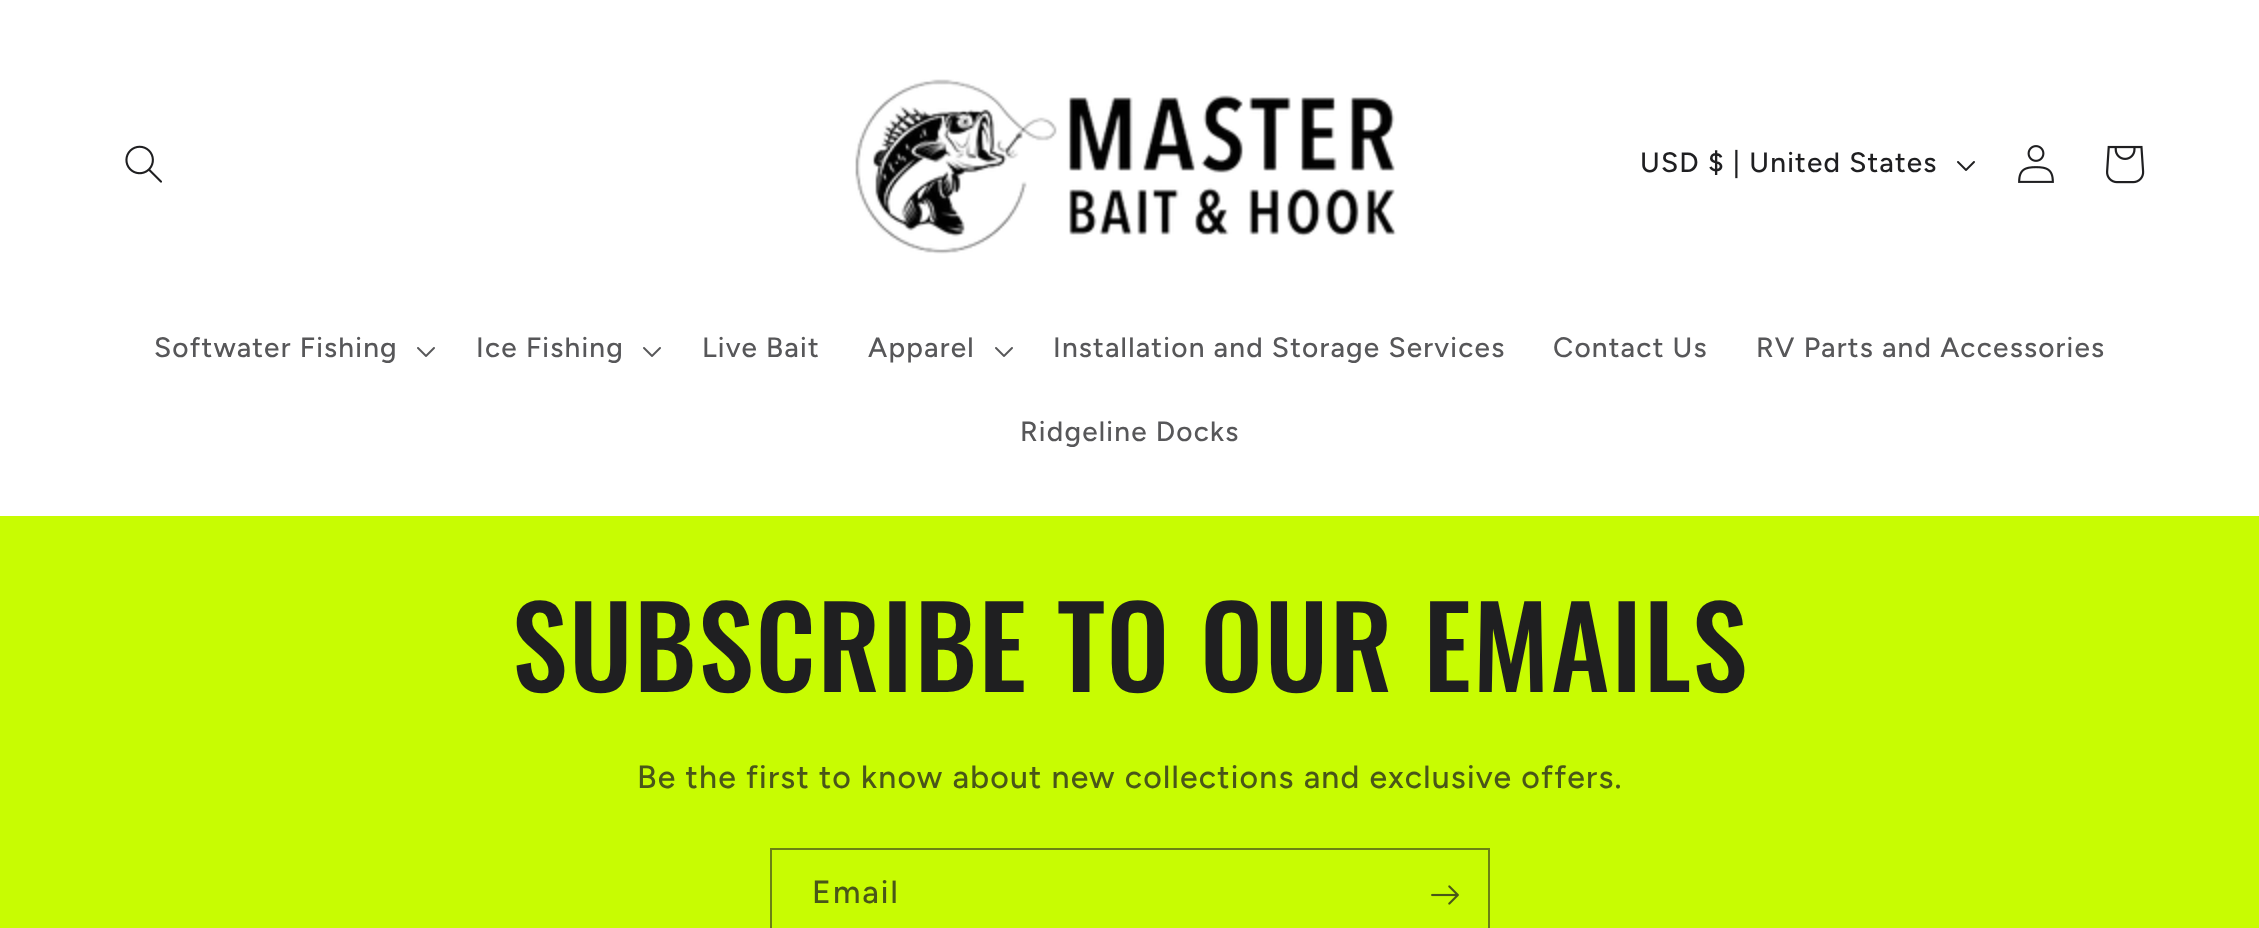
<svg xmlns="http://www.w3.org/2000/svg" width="2259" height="928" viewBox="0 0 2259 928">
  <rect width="100%" height="100%" fill="#c8fc02"/>
  <rect x="0" y="0" width="2259" height="516" fill="#ffffff"/>
  <image x="125" y="145" width="37" height="38" href="img1.png"/>
  <image x="855" y="79" width="542" height="175" href="img2.png"/>
  <text x="1640" y="172" font-family="Figtree" font-size="28" font-weight="500" letter-spacing="1.2" fill="#1f1f21">USD $ | United States</text>
  <image x="1957" y="161" width="18" height="10" href="img3.png"/>
  <image x="2018" y="145" width="36" height="38" href="img4.png"/>
  <image x="2106" y="145" width="39" height="39" href="img5.png"/>
  <text x="154" y="357" font-family="Figtree" font-size="28" font-weight="500" letter-spacing="1.2" fill="#575759">Softwater Fishing</text>
  <image x="417" y="347" width="18" height="10" href="img6.png"/>
  <text x="476" y="357" font-family="Figtree" font-size="28" font-weight="500" letter-spacing="1.2" fill="#575759">Ice Fishing</text>
  <image x="643" y="347" width="18" height="10" href="img6.png"/>
  <text x="702" y="357" font-family="Figtree" font-size="28" font-weight="500" letter-spacing="1.2" fill="#575759">Live Bait</text>
  <text x="868" y="357" font-family="Figtree" font-size="28" font-weight="500" letter-spacing="1.2" fill="#575759">Apparel</text>
  <image x="995" y="347" width="18" height="10" href="img6.png"/>
  <text x="1053" y="357" font-family="Figtree" font-size="28" font-weight="500" letter-spacing="1.2" fill="#575759">Installation and Storage Services</text>
  <text x="1553" y="357" font-family="Figtree" font-size="28" font-weight="500" letter-spacing="1.2" fill="#575759">Contact Us</text>
  <text x="1756" y="357" font-family="Figtree" font-size="28" font-weight="500" letter-spacing="1.2" fill="#575759">RV Parts and Accessories</text>
  <text x="1020" y="441" font-family="Figtree" font-size="28" font-weight="500" letter-spacing="1.2" fill="#575759">Ridgeline Docks</text>
  <text x="512" y="692" font-family="Oswald" font-size="112" font-weight="500" letter-spacing="1.7" fill="#1f1f21">SUBSCRIBE TO OUR EMAILS</text>
  <text x="637" y="788" font-family="Figtree" font-size="32" font-weight="500" letter-spacing="1.2" fill="#495619">Be the first to know about new collections and exclusive offers.</text>
  <rect x="771" y="849" width="718" height="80" fill="none" stroke="#6b8213" stroke-width="2"/>
  <text x="812" y="903" font-family="Figtree" font-size="32" font-weight="500" letter-spacing="2" fill="#495619">Email</text>
  <image x="1431" y="885" width="28" height="20" href="img7.png"/>
</svg>
